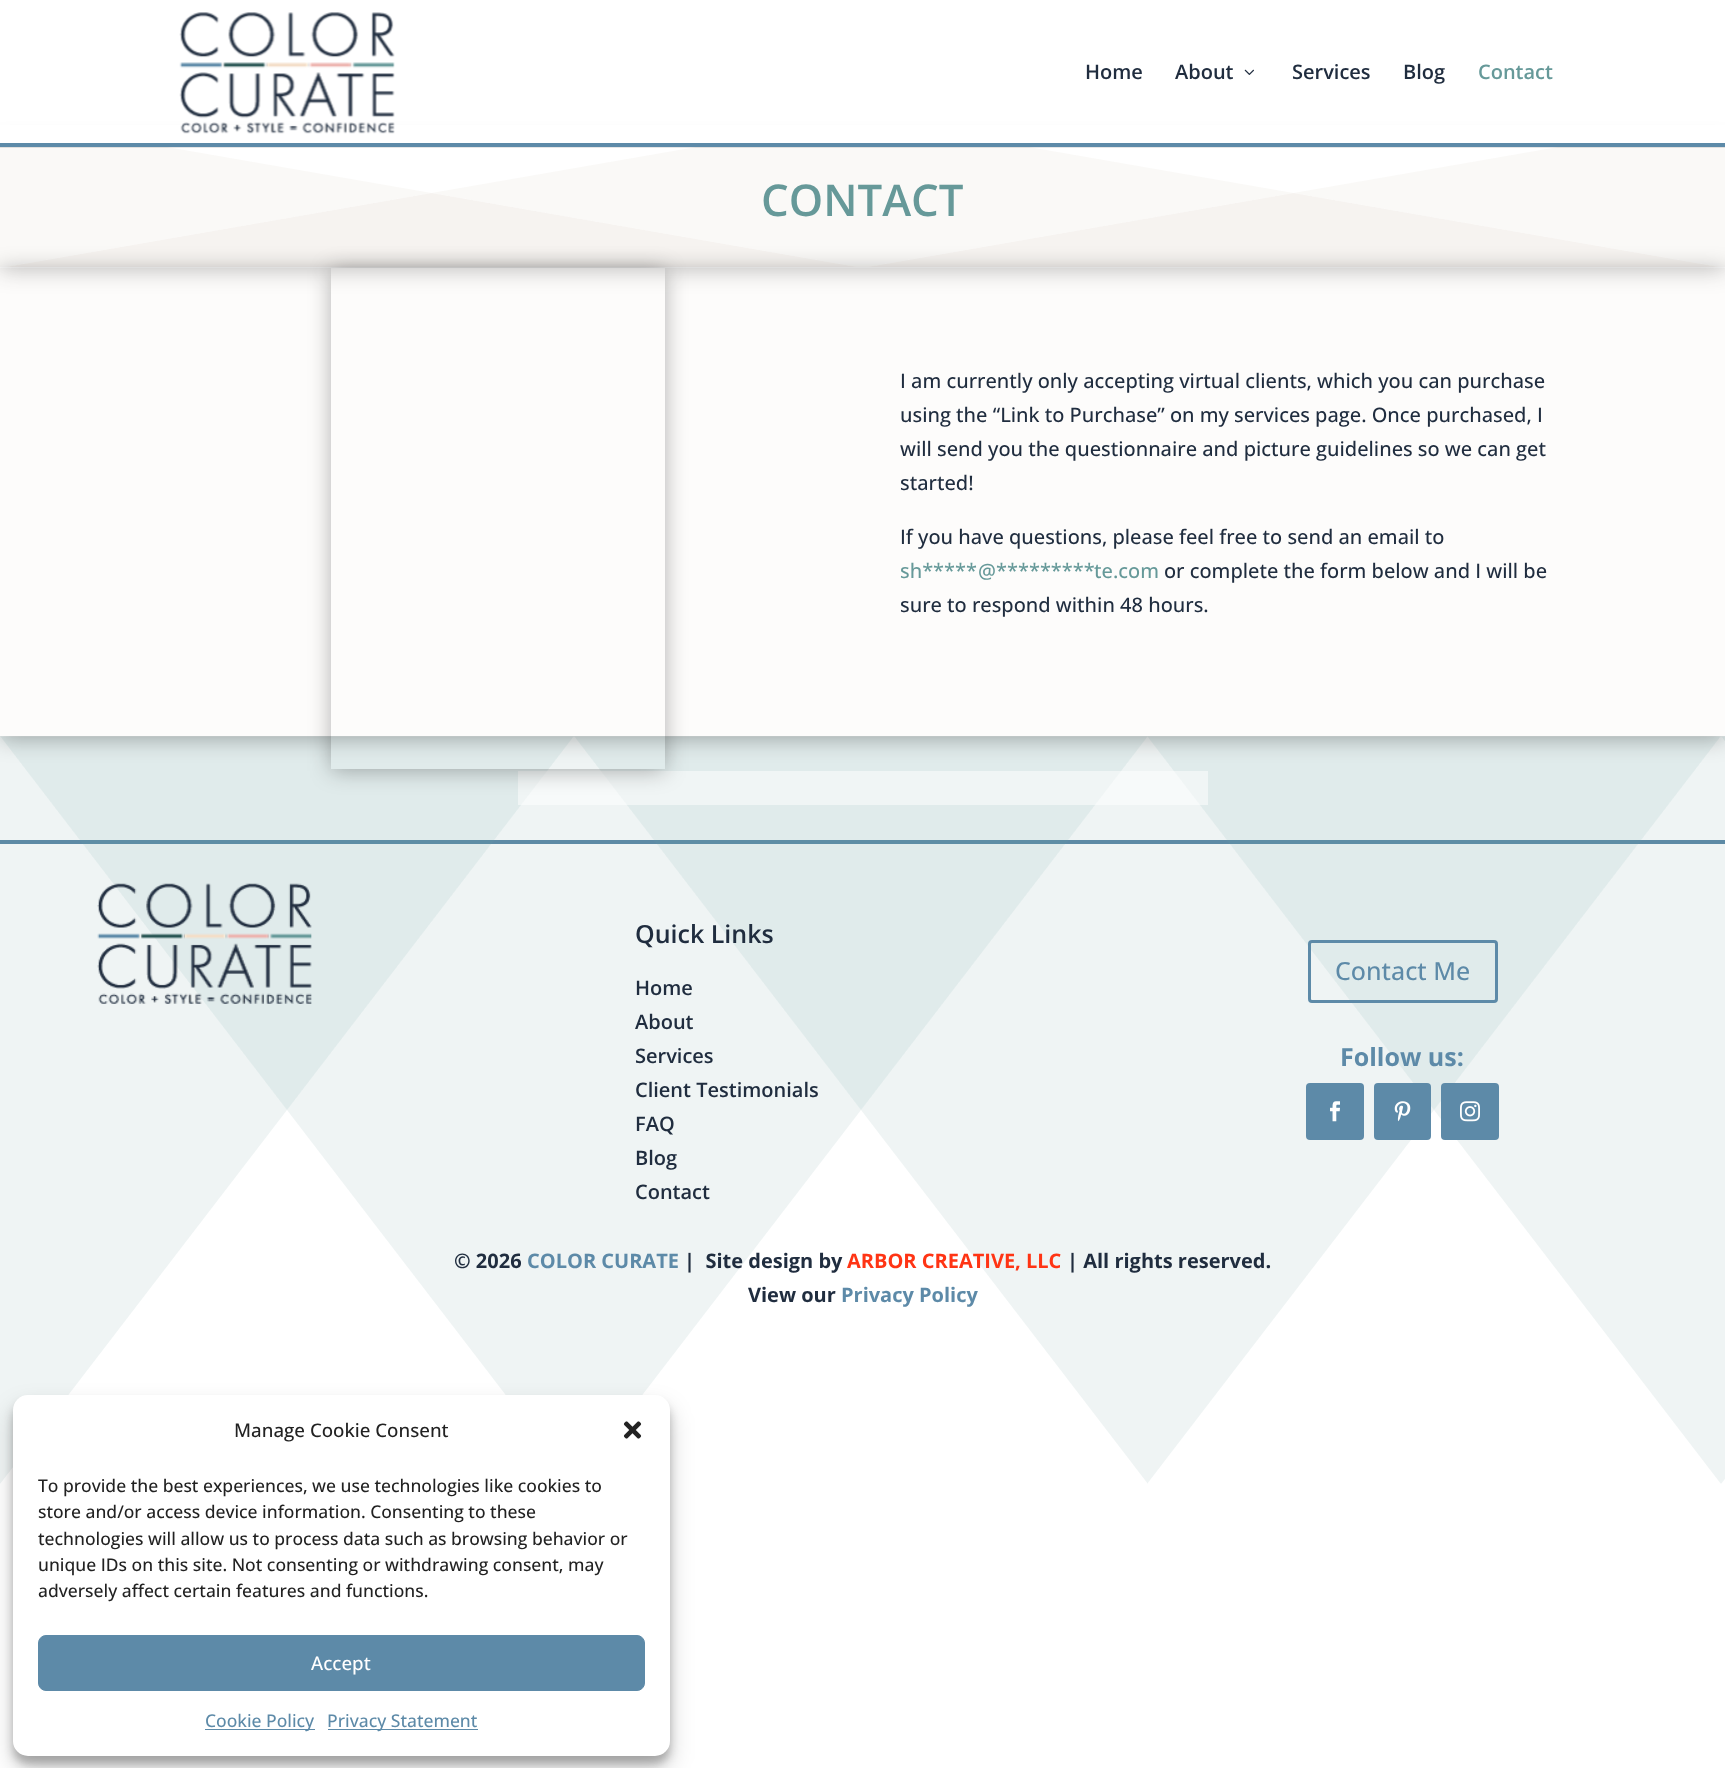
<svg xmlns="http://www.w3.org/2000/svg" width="1725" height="1768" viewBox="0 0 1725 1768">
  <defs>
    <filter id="blur1" x="-50%" y="-200%" width="200%" height="500%"><feGaussianBlur stdDeviation="11"/></filter>
    <clipPath id="clip1"><path d="M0 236H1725V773H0ZM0 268H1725V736H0Z" clip-rule="evenodd"/></clipPath>
    <clipPath id="clip2"><path d="M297 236H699V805H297ZM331 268H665V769H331Z" clip-rule="evenodd"/></clipPath>
    <filter id="blur2" x="-50%" y="-200%" width="200%" height="500%"><feGaussianBlur stdDeviation="4"/></filter>
    <filter id="blur3" x="-50%" y="-200%" width="200%" height="500%"><feGaussianBlur stdDeviation="12.5"/></filter>
  </defs>
  <rect width="100%" height="100%" fill="#ffffff"/>
  <rect x="0" y="145" width="1725" height="125" fill="#000000" fill-opacity="0.3" filter="url(#blur1)"/>
  <rect x="0" y="147" width="1725" height="121" fill="#ffffff"/>
  <image x="0" y="147" width="1725" height="120" href="img3.png"/>
  <rect x="0" y="147" width="1725" height="1" fill="#000000" fill-opacity="0.1"/>
  <rect x="0" y="125" width="1725" height="18" fill="#ffffff"/>
  <rect x="0" y="143" width="1725" height="4" fill="#5d8aa8"/>
  <image x="179" y="12" width="216" height="122" href="img1.png"/>
  <text x="1085" y="79" font-family="Open Sans" font-size="20" font-weight="600" fill="#202d3f">Home</text>
  <text x="1175" y="79" font-family="Open Sans" font-size="20" font-weight="600" fill="#202d3f">About</text>
  <image x="1244" y="69" width="10" height="6" href="img2.png"/>
  <text x="1292" y="79" font-family="Open Sans" font-size="20" font-weight="600" fill="#202d3f">Services</text>
  <text x="1403" y="79" font-family="Open Sans" font-size="20" font-weight="600" fill="#202d3f">Blog</text>
  <text x="1478" y="79" font-family="Open Sans" font-size="20" font-weight="600" fill="#669999">Contact</text>
  <text x="761" y="216" font-family="Open Sans" font-size="43.75" font-weight="600" fill="#669999">CONTACT</text>
  <rect x="0" y="840" width="1725" height="4" fill="#5d8aa8"/>
  <image x="0" y="736" width="1725" height="748" href="img4.png"/>
  <rect x="518" y="771" width="690" height="34" fill="#ffffff" fill-opacity="0.5"/>
  <g clip-path="url(#clip1)">
    <rect x="0" y="270" width="1725" height="469" fill="#000000" fill-opacity="0.3" filter="url(#blur1)"/>
  </g>
  <rect x="0" y="268" width="1725" height="468" fill="#f4f1ed" fill-opacity="0.2"/>
  <g clip-path="url(#clip2)">
    <rect x="331" y="270" width="334" height="501" fill="#000000" fill-opacity="0.3" filter="url(#blur1)"/>
  </g>
  <text x="900" y="388" font-family="Open Sans" font-size="20" font-weight="500" fill="#202d3f">I am currently only accepting virtual clients, which you can purchase</text>
  <text x="900" y="422" font-family="Open Sans" font-size="20" font-weight="500" fill="#202d3f">using the “Link to Purchase” on my services page. Once purchased, I</text>
  <text x="900" y="456" font-family="Open Sans" font-size="20" font-weight="500" fill="#202d3f">will send you the questionnaire and picture guidelines so we can get</text>
  <text x="900" y="490" font-family="Open Sans" font-size="20" font-weight="500" fill="#202d3f">started!</text>
  <text x="900" y="544" font-family="Open Sans" font-size="20" font-weight="500" fill="#202d3f">If you have questions, please feel free to send an email to</text>
  <text x="900" y="578" font-family="Open Sans" font-size="20" font-weight="500" fill="#669999">sh*****</text>
  <text x="978" y="578" font-family="Open Sans" font-size="20" font-weight="500" fill="#669999">@*********</text>
  <text x="1094" y="578" font-family="Open Sans" font-size="20" font-weight="500" fill="#669999">te.com</text>
  <text x="1164" y="578" font-family="Open Sans" font-size="20" font-weight="500" fill="#202d3f">or complete the form below and I will be</text>
  <text x="900" y="612" font-family="Open Sans" font-size="20" font-weight="500" fill="#202d3f">sure to respond within 48 hours.</text>
  <image x="97" y="883" width="215" height="121" href="img5.png"/>
  <text x="635" y="943" font-family="Open Sans" font-size="25" font-weight="600" fill="#202d3f">Quick Links</text>
  <text x="635" y="995" font-family="Open Sans" font-size="20" font-weight="600" fill="#202d3f">Home</text>
  <text x="635" y="1029" font-family="Open Sans" font-size="20" font-weight="600" fill="#202d3f">About</text>
  <text x="635" y="1063" font-family="Open Sans" font-size="20" font-weight="600" fill="#202d3f">Services</text>
  <text x="635" y="1097" font-family="Open Sans" font-size="20" font-weight="600" fill="#202d3f">Client Testimonials</text>
  <text x="635" y="1131" font-family="Open Sans" font-size="20" font-weight="600" fill="#202d3f">FAQ</text>
  <text x="635" y="1165" font-family="Open Sans" font-size="20" font-weight="600" fill="#202d3f">Blog</text>
  <text x="635" y="1199" font-family="Open Sans" font-size="20" font-weight="600" fill="#202d3f">Contact</text>
  <rect x="1309.5" y="941.5" width="187" height="60" rx="2.5" fill="none" stroke="#5d8aa8" stroke-width="3"/>
  <text x="1335" y="980" font-family="Open Sans" font-size="25" font-weight="500" fill="#5d8aa8">Contact Me</text>
  <text x="1340" y="1066" font-family="Open Sans" font-size="25" font-weight="bold" fill="#5d8aa8">Follow us:</text>
  <rect x="1306" y="1083" width="58" height="57" rx="4" fill="#5d8aa8"/>
  <image x="1330" y="1101" width="10" height="21" href="img6.png"/>
  <rect x="1374" y="1083" width="57" height="57" rx="4" fill="#5d8aa8"/>
  <image x="1394" y="1101" width="17" height="21" href="img7.png"/>
  <rect x="1441" y="1083" width="58" height="57" rx="4" fill="#5d8aa8"/>
  <image x="1460" y="1101" width="20" height="21" href="img8.png"/>
  <text x="454" y="1268" font-family="Open Sans" font-size="20" font-weight="bold" fill="#202d3f">© 2026</text>
  <text x="527" y="1268" font-family="Open Sans" font-size="20" font-weight="bold" fill="#5d8aa8">COLOR CURATE</text>
  <text x="684" y="1268" font-family="Open Sans" font-size="20" font-weight="bold" fill="#202d3f" xml:space="preserve">|  Site design by</text>
  <text x="847" y="1268" font-family="Open Sans" font-size="20" font-weight="bold" fill="#ff3414">ARBOR CREATIVE, LLC</text>
  <text x="1067" y="1268" font-family="Open Sans" font-size="20" font-weight="bold" fill="#202d3f">| All rights reserved.</text>
  <text x="748" y="1302" font-family="Open Sans" font-size="20" font-weight="bold" fill="#202d3f">View our</text>
  <text x="841" y="1302" font-family="Open Sans" font-size="20" font-weight="bold" fill="#5d8aa8">Privacy Policy</text>
  <rect x="13" y="1403" width="657" height="361" rx="15" fill="#000000" fill-opacity="0.23" filter="url(#blur2)"/>
  <rect x="13" y="1408" width="657" height="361" rx="15" fill="#000000" fill-opacity="0.19" filter="url(#blur3)"/>
  <rect x="13" y="1395" width="657" height="361" rx="15" fill="#ffffff"/>
  <text x="234" y="1437" font-family="Open Sans" font-size="18.75" font-weight="500" fill="#222222">Manage Cookie Consent</text>
  <image x="623" y="1421" width="19" height="18" href="img9.png"/>
  <text x="38" y="1492" font-family="Open Sans" font-size="17.5" font-weight="500" fill="#222222">To provide the best experiences, we use technologies like cookies to</text>
  <text x="38" y="1518" font-family="Open Sans" font-size="17.5" font-weight="500" fill="#222222">store and/or access device information. Consenting to these</text>
  <text x="38" y="1545" font-family="Open Sans" font-size="17.5" font-weight="500" fill="#222222">technologies will allow us to process data such as browsing behavior or</text>
  <text x="38" y="1571" font-family="Open Sans" font-size="17.5" font-weight="500" fill="#222222">unique IDs on this site. Not consenting or withdrawing consent, may</text>
  <text x="38" y="1597" font-family="Open Sans" font-size="17.5" font-weight="500" fill="#222222">adversely affect certain features and functions.</text>
  <rect x="38.5" y="1635.5" width="606" height="55" rx="7.5" fill="#5d8aa8" stroke="#5d8aa8"/>
  <text x="311" y="1670" font-family="Open Sans" font-size="18.75" font-weight="500" fill="#ffffff">Accept</text>
  <rect x="205" y="1729" width="110" height="1" fill="#5d8aa8"/>
  <text x="205" y="1727" font-family="Open Sans" font-size="17.5" font-weight="500" fill="#5d8aa8">Cookie Policy</text>
  <rect x="328" y="1729" width="150" height="1" fill="#5d8aa8"/>
  <text x="327" y="1727" font-family="Open Sans" font-size="17.5" font-weight="500" fill="#5d8aa8">Privacy Statement</text>
</svg>
